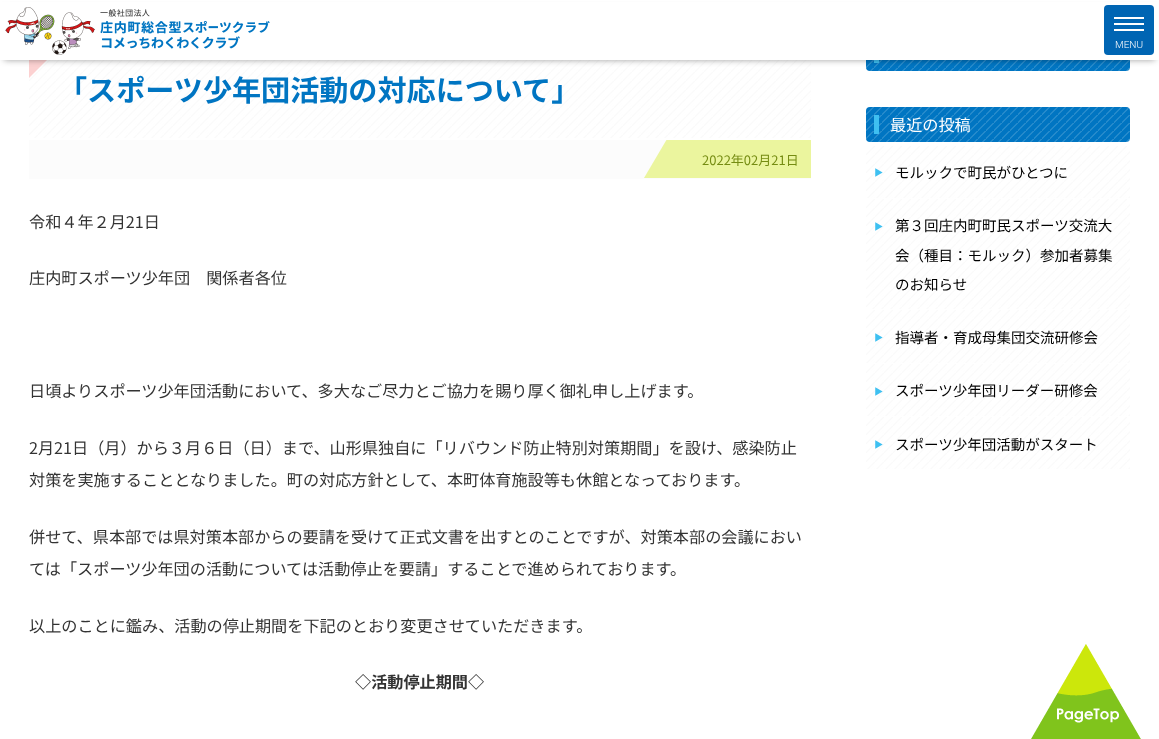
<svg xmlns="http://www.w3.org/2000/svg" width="1159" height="739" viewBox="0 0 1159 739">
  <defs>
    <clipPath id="clip1"><rect x="29" y="36" width="782" height="104"/></clipPath>
    <filter id="blur1" x="-50%" y="-200%" width="200%" height="500%"><feGaussianBlur stdDeviation="3"/></filter>
    <clipPath id="clip2"><rect x="29" y="140" width="782" height="39"/></clipPath>
  </defs>
  <rect width="100%" height="100%" fill="#ffffff"/>
  <image x="29" y="60" width="782" height="78" href="img3.png"/>
  <g clip-path="url(#clip1)">
    <path d="M-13 36L29-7L71 36L29 78Z" fill="#fcd1d1"/>
  </g>
  <image x="866" y="60" width="264" height="11" href="img4.png"/>
  <rect x="874" y="60" width="5" height="3" fill="#3ebff1"/>
  <rect x="4" y="8" width="1151" height="52" fill="#000000" fill-opacity="0.38" filter="url(#blur1)"/>
  <rect x="0" y="2" width="1159" height="58" fill="#ffffff"/>
  <image x="5" y="7" width="90" height="48" href="img1.png"/>
  <image x="100" y="9" width="170" height="40" href="img2.png"/>
  <rect x="1104" y="5" width="50" height="50" rx="4" fill="#0065b3"/>
  <rect x="1114" y="17" width="30" height="2" fill="#ffffff"/>
  <rect x="1114" y="23" width="30" height="2" fill="#ffffff"/>
  <rect x="1114" y="29" width="30" height="2" fill="#ffffff"/>
  <text x="1115" y="48" font-family="Roboto" font-size="10" font-weight="300" fill="#ffffff">MENU</text>
  <text x="58" y="101" font-family="Noto Sans JP" font-size="29.1" font-weight="bold" fill="#0075c2">「スポーツ少年団活動の対応について」</text>
  <rect x="29" y="140" width="782" height="39" fill="#fcfcfc"/>
  <g clip-path="url(#clip2)">
    <path d="M667 139H848L825 178H644Z" fill="#ebf59e"/>
  </g>
  <text x="702" y="165" font-family="Noto Sans JP" font-size="13" fill="#758c12">2022年02月21日</text>
  <text x="29" y="228" font-family="Noto Sans JP" font-size="16.15" fill="#333333">令和４年２月21日</text>
  <text x="29" y="284" font-family="Noto Sans JP" font-size="16.15" fill="#333333">庄内町スポーツ少年団　関係者各位</text>
  <text x="29" y="397" font-family="Noto Sans JP" font-size="16.15" fill="#333333">日頃よりスポーツ少年団活動において、多大なご尽力とご協力を賜り厚く御礼申し上げます。</text>
  <text x="29" y="454" font-family="Noto Sans JP" font-size="16.15" fill="#333333">2月21日（月）から３月６日（日）まで、山形県独自に「リバウンド防止特別対策期間」を設け、感染防止</text>
  <text x="29" y="486" font-family="Noto Sans JP" font-size="16.15" fill="#333333">対策を実施することとなりました。町の対応方針として、本町体育施設等も休館となっております。</text>
  <text x="29" y="543" font-family="Noto Sans JP" font-size="16.15" fill="#333333">併せて、県本部では県対策本部からの要請を受けて正式文書を出すとのことですが、対策本部の会議におい</text>
  <text x="29" y="575" font-family="Noto Sans JP" font-size="16.15" fill="#333333">ては「スポーツ少年団の活動については活動停止を要請」することで進められております。</text>
  <text x="29" y="632" font-family="Noto Sans JP" font-size="16.15" fill="#333333">以上のことに鑑み、活動の停止期間を下記のとおり変更させていただきます。</text>
  <text x="355" y="688" font-family="Noto Sans JP" font-size="16.15" font-weight="bold" fill="#333333">◇活動停止期間◇</text>
  <image x="866" y="107" width="264" height="35" href="img5.png"/>
  <rect x="874" y="115" width="5" height="19" fill="#3ebff1"/>
  <text x="890" y="131" font-family="Noto Sans JP" font-size="16.15" fill="#ffffff">最近の投稿</text>
  <image x="866" y="146" width="264" height="52" href="img6.png"/>
  <text x="882" y="177" transform="rotate(-90 882 177)" font-family="Noto Sans JP" font-size="9" fill="#3ec0f1">▼</text>
  <text x="895" y="178" font-family="Noto Sans JP" font-size="14.5" fill="#000000">モルックで町民がひとつに</text>
  <image x="866" y="199" width="264" height="110" href="img7.png"/>
  <text x="882" y="231" transform="rotate(-90 882 231)" font-family="Noto Sans JP" font-size="9" fill="#3ec0f1">▼</text>
  <text x="895" y="231" font-family="Noto Sans JP" font-size="14.5" fill="#000000">第３回庄内町町民スポーツ交流大</text>
  <text x="895" y="261" font-family="Noto Sans JP" font-size="14.5" fill="#000000">会（種目：モルック）参加者募集</text>
  <text x="895" y="290" font-family="Noto Sans JP" font-size="14.5" fill="#000000">のお知らせ</text>
  <image x="866" y="310" width="264" height="53" href="img8.png"/>
  <text x="882" y="342" transform="rotate(-90 882 342)" font-family="Noto Sans JP" font-size="9" fill="#3ec0f1">▼</text>
  <text x="895" y="343" font-family="Noto Sans JP" font-size="14.5" fill="#000000">指導者・育成母集団交流研修会</text>
  <image x="866" y="364" width="264" height="52" href="img6.png"/>
  <text x="882" y="396" transform="rotate(-90 882 396)" font-family="Noto Sans JP" font-size="9" fill="#3ec0f1">▼</text>
  <text x="895" y="396" font-family="Noto Sans JP" font-size="14.5" fill="#000000">スポーツ少年団リーダー研修会</text>
  <image x="866" y="417" width="264" height="52" href="img6.png"/>
  <text x="882" y="449" transform="rotate(-90 882 449)" font-family="Noto Sans JP" font-size="9" fill="#3ec0f1">▼</text>
  <text x="895" y="450" font-family="Noto Sans JP" font-size="14.5" fill="#000000">スポーツ少年団活動がスタート</text>
  <image x="1031" y="644" width="110" height="95" href="img9.png"/>
</svg>
